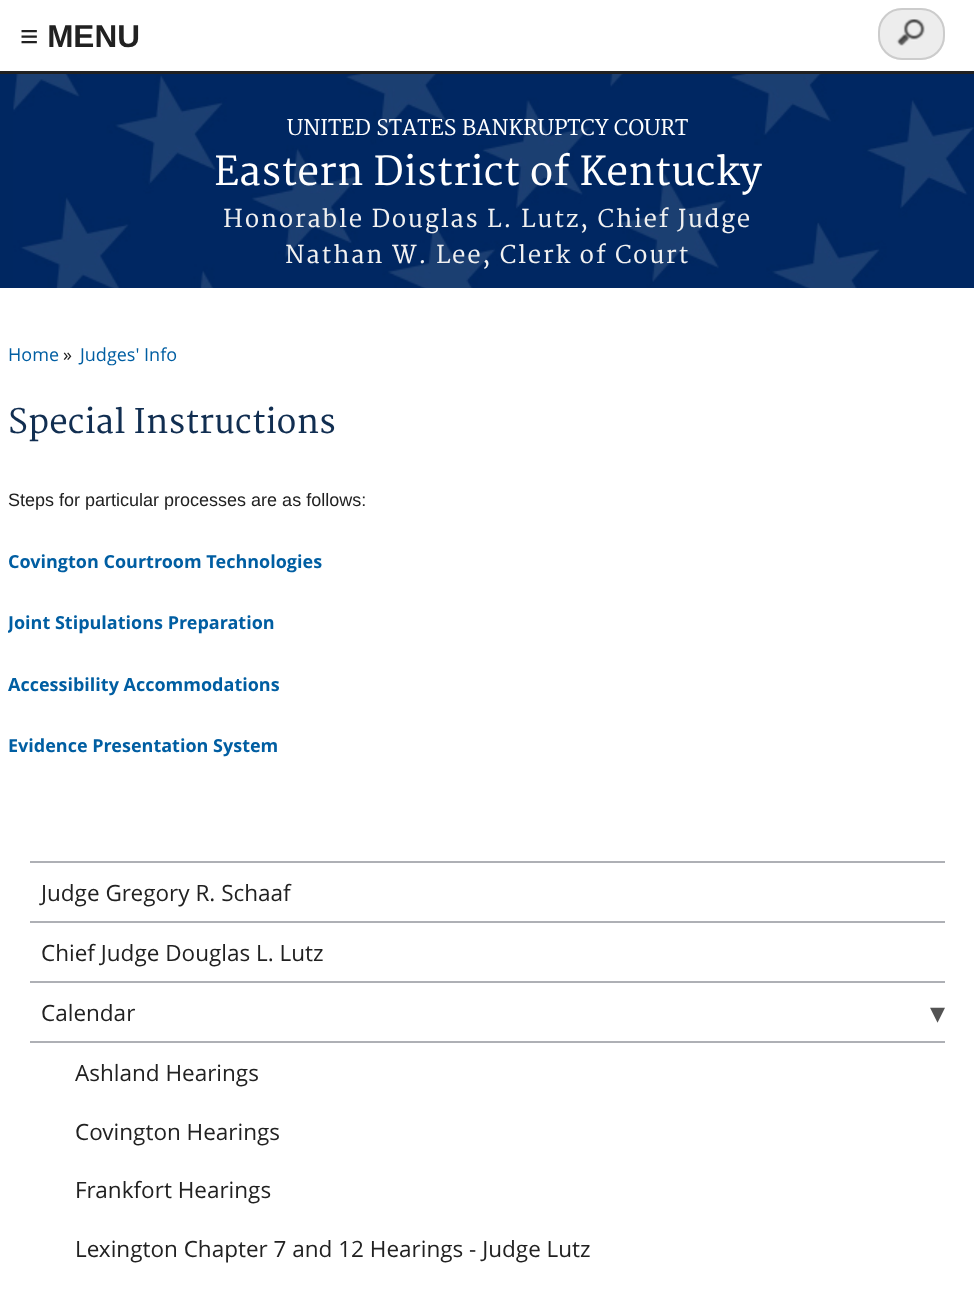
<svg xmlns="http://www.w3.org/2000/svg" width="974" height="1293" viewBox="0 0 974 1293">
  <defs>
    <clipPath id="clip1"><rect x="8" y="456" width="960" height="330"/></clipPath>
  </defs>
  <rect width="100%" height="100%" fill="#ffffff"/>
  <rect x="0" y="71" width="974" height="3" fill="#212121"/>
  <text x="20" y="47" font-family="Liberation Sans" font-size="31.5" font-weight="bold" fill="#212121">≡ MENU</text>
  <rect x="0" y="74" width="13" height="214" fill="#002761"/>
  <image x="13" y="74" width="961" height="214" href="img1.png"/>
  <rect x="878" y="8" width="67" height="52" rx="24" fill="#ededed"/>
  <image x="896" y="19" width="29" height="27" href="img2.png"/>
  <rect x="879" y="9" width="65" height="50" rx="23" fill="none" stroke="#cccccc" stroke-width="2"/>
  <text x="287" y="135" font-family="Merriweather" font-size="21" fill="#ffffff">UNITED STATES BANKRUPTCY COURT</text>
  <text x="214" y="185" font-family="Merriweather" font-size="39" fill="#ffffff">Eastern District of Kentucky</text>
  <text x="223" y="227" font-family="Merriweather" font-size="24" letter-spacing="1.65" fill="#f1f1f1">Honorable Douglas L. Lutz, Chief Judge</text>
  <text x="285" y="263" font-family="Merriweather" font-size="24" letter-spacing="1.65" fill="#f1f1f1">Nathan W. Lee, Clerk of Court</text>
  <text x="8" y="361" font-family="Open Sans" font-size="18" fill="#005ea2">Home</text>
  <text x="63" y="361" font-family="Open Sans" font-size="18" fill="#212121">»</text>
  <text x="80" y="361" font-family="Open Sans" font-size="18" fill="#005ea2">Judges' Info</text>
  <text x="8" y="433" font-family="Merriweather" font-size="33" fill="#112e51">Special Instructions</text>
  <text x="8" y="506" font-family="Liberation Sans" font-size="18" fill="#212121">Steps for particular processes are as follows:</text>
  <text x="8" y="568" font-family="Open Sans" font-size="18" font-weight="bold" fill="#005ea2">Covington Courtroom Technologies</text>
  <g clip-path="url(#clip1)">
    <text x="8" y="629" font-family="Open Sans" font-size="18" font-weight="bold" fill="#005ea2">Joint Stipulations Preparation</text>
  </g>
  <text x="8" y="691" font-family="Open Sans" font-size="18" font-weight="bold" fill="#005ea2">Accessibility Accommodations</text>
  <text x="8" y="752" font-family="Open Sans" font-size="18" font-weight="bold" fill="#005ea2">Evidence Presentation System</text>
  <rect x="30" y="861" width="915" height="2" fill="#aeb0b5"/>
  <text x="41" y="901" font-family="Open Sans" font-size="22.5" fill="#212121">Judge Gregory R. Schaaf</text>
  <rect x="30" y="921" width="915" height="2" fill="#aeb0b5"/>
  <text x="41" y="961" font-family="Open Sans" font-size="22.5" fill="#212121">Chief Judge Douglas L. Lutz</text>
  <rect x="30" y="981" width="915" height="2" fill="#aeb0b5"/>
  <text x="41" y="1021" font-family="Open Sans" font-size="22.5" fill="#212121">Calendar</text>
  <text x="930" y="1023" font-family="DejaVu Sans" font-size="30" fill="#535353">▾</text>
  <rect x="30" y="1041" width="915" height="2" fill="#aeb0b5"/>
  <text x="75" y="1081" font-family="Open Sans" font-size="22.5" fill="#212121">Ashland Hearings</text>
  <text x="75" y="1140" font-family="Open Sans" font-size="22.5" fill="#212121">Covington Hearings</text>
  <text x="75" y="1198" font-family="Open Sans" font-size="22.5" fill="#212121">Frankfort Hearings</text>
  <text x="75" y="1257" font-family="Open Sans" font-size="22.5" fill="#212121">Lexington Chapter 7 and 12 Hearings - Judge Lutz</text>
</svg>
